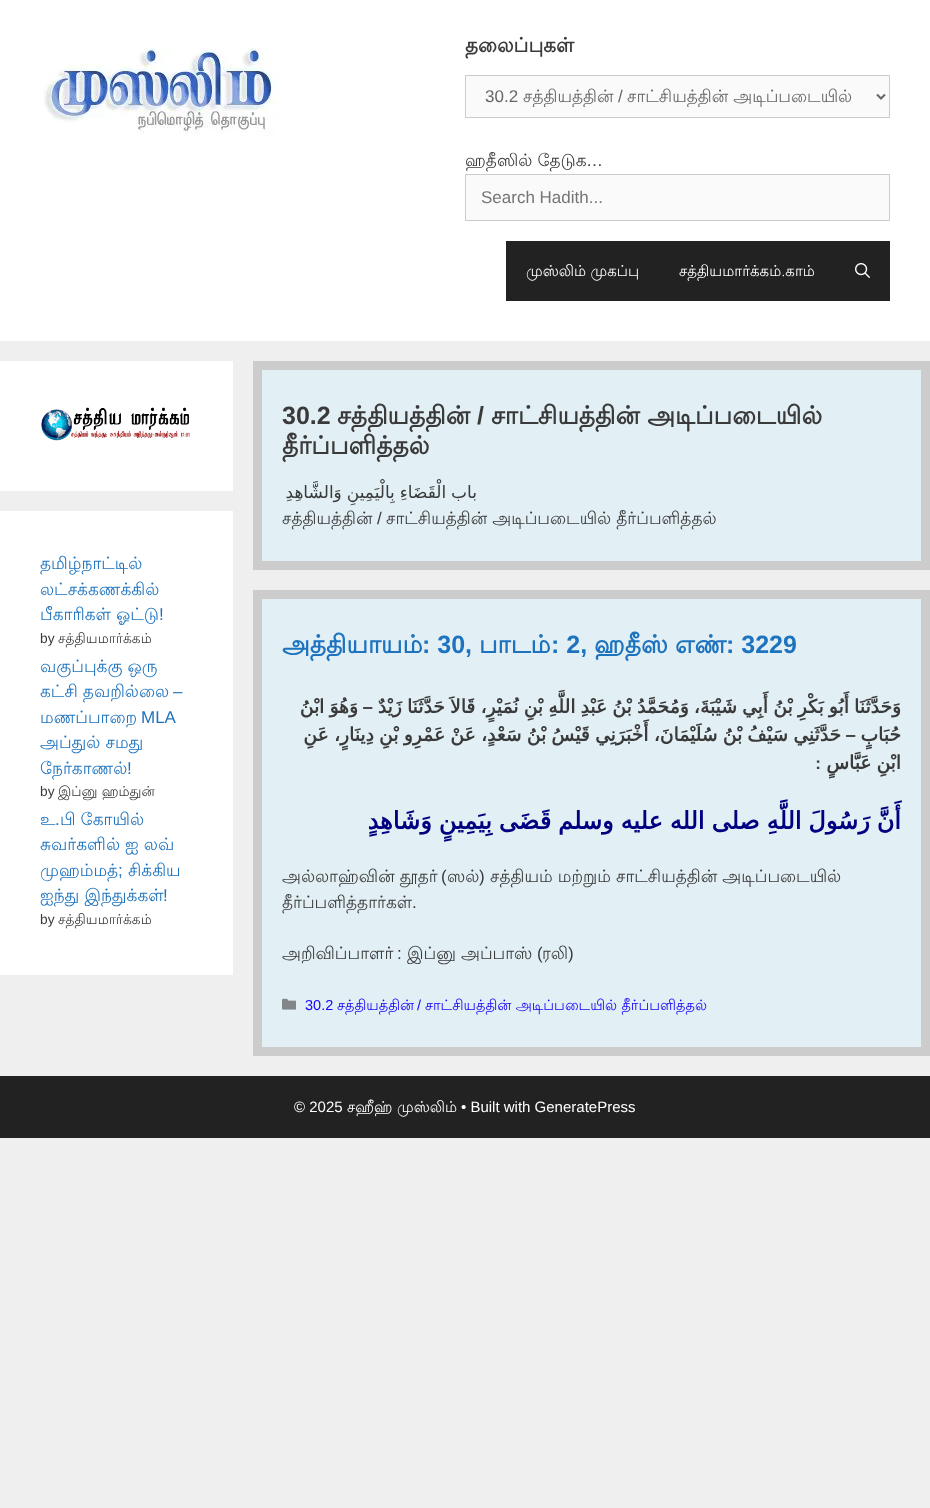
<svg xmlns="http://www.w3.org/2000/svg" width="930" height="1508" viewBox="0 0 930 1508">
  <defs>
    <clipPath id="clip1"><rect x="485" y="86" width="373" height="21"/></clipPath>
  </defs>
  <rect width="100%" height="100%" fill="#efefef"/>
  <rect x="0" y="0" width="930" height="341" fill="#ffffff"/>
  <image x="44" y="48" width="236" height="88" href="img1.png"/>
  <text x="465" y="52" font-family="Lohit Tamil" font-size="20" font-weight="bold" fill="#3a3a3a">தலைப்புகள்</text>
  <rect x="465.5" y="75.5" width="424" height="42" fill="#fafafa" stroke="#cccccc"/>
  <path d="M877 94.5L881 98.5L885 94.5" fill="none" stroke="#666666" stroke-width="2"/>
  <text x="485" y="102" font-family="Liberation Sans" font-size="17" fill="#666666">30.2</text>
  <g clip-path="url(#clip1)">
    <text x="523" y="102" font-family="Lohit Tamil" font-size="17" fill="#666666">சத்தியத்தின்</text>
  </g>
  <text x="618" y="102" font-family="Liberation Sans" font-size="17" fill="#666666">/</text>
  <g clip-path="url(#clip1)">
    <text x="627" y="102" font-family="Lohit Tamil" font-size="17" fill="#666666">சாட்சியத்தின் அடிப்படையில்</text>
  </g>
  <text x="465" y="166" font-family="Lohit Tamil" font-size="17" fill="#3a3a3a">ஹதீஸில் தேடுக</text>
  <text x="586" y="166" font-family="Liberation Sans" font-size="17" fill="#3a3a3a">…</text>
  <rect x="465.5" y="174.5" width="424" height="46" fill="#fafafa" stroke="#cccccc"/>
  <text x="481" y="203" font-family="Liberation Sans" font-size="17" fill="#757575">Search Hadith...</text>
  <rect x="506" y="241" width="384" height="60" fill="#222222"/>
  <text x="526" y="276" font-family="Lohit Tamil" font-size="15" fill="#ffffff">முஸ்லிம் முகப்பு</text>
  <text x="679" y="276" font-family="Lohit Tamil" font-size="15" fill="#ffffff">சத்தியமார்க்கம்.காம்</text>
  <image x="855" y="263" width="15" height="15" href="img2.png"/>
  <rect x="0" y="361" width="233" height="130" fill="#ffffff"/>
  <image x="41" y="407" width="149" height="34" href="img3.png"/>
  <rect x="0" y="511" width="233" height="464" fill="#ffffff"/>
  <text x="40" y="569" font-family="Lohit Tamil" font-size="17" fill="#1e73be">தமிழ்நாட்டில்</text>
  <text x="40" y="595" font-family="Lohit Tamil" font-size="17" fill="#1e73be">லட்சக்கணக்கில்</text>
  <text x="40" y="620" font-family="Lohit Tamil" font-size="17" fill="#1e73be">பீகாரிகள் ஓட்டு</text>
  <text x="159" y="620" font-family="Liberation Sans" font-size="17" fill="#1e73be">!</text>
  <text x="40" y="643" font-family="Liberation Sans" font-size="13.75" fill="#3a3a3a">by</text>
  <text x="58" y="643" font-family="Lohit Tamil" font-size="13.75" fill="#3a3a3a">சத்தியமார்க்கம்</text>
  <text x="40" y="672" font-family="Lohit Tamil" font-size="17" fill="#1e73be">வகுப்புக்கு ஒரு</text>
  <text x="40" y="697" font-family="Lohit Tamil" font-size="17" fill="#1e73be">கட்சி தவறில்லை</text>
  <text x="173" y="697" font-family="Liberation Sans" font-size="17" fill="#1e73be">–</text>
  <text x="40" y="723" font-family="Lohit Tamil" font-size="17" fill="#1e73be">மணப்பாறை</text>
  <text x="141" y="723" font-family="Liberation Sans" font-size="17" fill="#1e73be">MLA</text>
  <text x="40" y="748" font-family="Lohit Tamil" font-size="17" fill="#1e73be">அப்துல் சமது</text>
  <text x="40" y="774" font-family="Lohit Tamil" font-size="17" fill="#1e73be">நேர்காணல்</text>
  <text x="127" y="774" font-family="Liberation Sans" font-size="17" fill="#1e73be">!</text>
  <text x="40" y="796" font-family="Liberation Sans" font-size="13.75" fill="#3a3a3a">by</text>
  <text x="58" y="796" font-family="Lohit Tamil" font-size="13.75" fill="#3a3a3a">இப்னு ஹம்துன்</text>
  <text x="40" y="825" font-family="Lohit Tamil" font-size="17" fill="#1e73be">உ</text>
  <text x="55" y="825" font-family="Liberation Sans" font-size="17" fill="#1e73be">.</text>
  <text x="60" y="825" font-family="Lohit Tamil" font-size="17" fill="#1e73be">பி கோயில்</text>
  <text x="40" y="850" font-family="Lohit Tamil" font-size="17" fill="#1e73be">சுவர்களில் ஐ லவ்</text>
  <text x="40" y="876" font-family="Lohit Tamil" font-size="17" fill="#1e73be">முஹம்மத்</text>
  <text x="118" y="876" font-family="Liberation Sans" font-size="17" fill="#1e73be">;</text>
  <text x="128" y="876" font-family="Lohit Tamil" font-size="17" fill="#1e73be">சிக்கிய</text>
  <text x="40" y="901" font-family="Lohit Tamil" font-size="17" fill="#1e73be">ஐந்து இந்துக்கள்</text>
  <text x="163" y="901" font-family="Liberation Sans" font-size="17" fill="#1e73be">!</text>
  <text x="40" y="924" font-family="Liberation Sans" font-size="13.75" fill="#3a3a3a">by</text>
  <text x="58" y="924" font-family="Lohit Tamil" font-size="13.75" fill="#3a3a3a">சத்தியமார்க்கம்</text>
  <rect x="257.5" y="365.5" width="668" height="200" fill="#e2eff4" stroke="#cccccc" stroke-width="9"/>
  <text x="282" y="424" font-family="Liberation Sans" font-size="25" font-weight="bold" fill="#3a3a3a">30.2</text>
  <text x="337" y="424" font-family="Lohit Tamil" font-size="25" font-weight="bold" fill="#3a3a3a">சத்தியத்தின்</text>
  <text x="477" y="424" font-family="Liberation Sans" font-size="25" font-weight="bold" fill="#3a3a3a">/</text>
  <text x="491" y="424" font-family="Lohit Tamil" font-size="25" font-weight="bold" fill="#3a3a3a">சாட்சியத்தின் அடிப்படையில்</text>
  <text x="282" y="454" font-family="Lohit Tamil" font-size="25" font-weight="bold" fill="#3a3a3a">தீர்ப்பளித்தல்</text>
  <text x="477" y="498" word-spacing="-0.5" font-family="DejaVu Sans" font-size="17" direction="rtl" fill="#3a3a3a">باب الْقَضَاءِ بِالْيَمِينِ وَالشَّاهِدِ</text>
  <text x="282" y="524" font-family="Lohit Tamil" font-size="17" fill="#3a3a3a">சத்தியத்தின்</text>
  <text x="377" y="524" font-family="Liberation Sans" font-size="17" fill="#3a3a3a">/</text>
  <text x="386" y="524" font-family="Lohit Tamil" font-size="17" fill="#3a3a3a">சாட்சியத்தின் அடிப்படையில் தீர்ப்பளித்தல்</text>
  <rect x="257.5" y="594.5" width="668" height="457" fill="#e2eff4" stroke="#cccccc" stroke-width="9"/>
  <text x="282" y="653" font-family="Lohit Tamil" font-size="25" font-weight="bold" fill="#1e73be">அத்தியாயம்</text>
  <text x="422" y="653" font-family="Liberation Sans" font-size="25" font-weight="bold" fill="#1e73be">: 30,</text>
  <text x="479" y="653" font-family="Lohit Tamil" font-size="25" font-weight="bold" fill="#1e73be">பாடம்</text>
  <text x="551" y="653" font-family="Liberation Sans" font-size="25" font-weight="bold" fill="#1e73be">: 2,</text>
  <text x="594" y="653" font-family="Lohit Tamil" font-size="25" font-weight="bold" fill="#1e73be">ஹதீஸ்</text>
  <text x="675" y="653" font-family="Lohit Tamil" font-size="25" font-weight="bold" fill="#1e73be">எண்</text>
  <text x="726" y="653" font-family="Liberation Sans" font-size="25" font-weight="bold" fill="#1e73be">: 3229</text>
  <text x="358" y="713" word-spacing="-0.75" font-family="DejaVu Sans" font-size="18.7" font-weight="bold" direction="rtl" fill="#3a3a3a">وَهُوَ ابْنُ</text>
  <text x="373" y="713" font-family="Liberation Sans" font-size="18.7" font-weight="bold" direction="rtl" fill="#3a3a3a">–</text>
  <text x="901" y="713" word-spacing="-0.75" font-family="DejaVu Sans" font-size="18.7" font-weight="bold" direction="rtl" fill="#3a3a3a">وَحَدَّثَنَا أَبُو بَكْرِ بْنُ أَبِي شَيْبَةَ، وَمُحَمَّدُ بْنُ عَبْدِ اللَّهِ بْنِ نُمَيْرٍ، قَالاَ حَدَّثَنَا زَيْدٌ</text>
  <text x="841" y="741" word-spacing="-0.7" font-family="DejaVu Sans" font-size="18.7" font-weight="bold" direction="rtl" fill="#3a3a3a">حَدَّثَنِي سَيْفُ بْنُ سُلَيْمَانَ، أَخْبَرَنِي قَيْسُ بْنُ سَعْدٍ، عَنْ عَمْرِو بْنِ دِينَارٍ، عَنِ</text>
  <text x="856" y="741" font-family="Liberation Sans" font-size="18.7" font-weight="bold" direction="rtl" fill="#3a3a3a">–</text>
  <text x="901" y="741" font-family="DejaVu Sans" font-size="18.7" font-weight="bold" direction="rtl" fill="#3a3a3a">حُبَابٍ</text>
  <text x="821" y="769" font-family="Liberation Sans" font-size="17" font-weight="bold" direction="rtl" fill="#3a3a3a">:</text>
  <text x="901" y="769" word-spacing="-1" font-family="DejaVu Sans" font-size="18.7" font-weight="bold" direction="rtl" fill="#3a3a3a">ابْنِ عَبَّاسٍ</text>
  <text x="901" y="829" word-spacing="-0.75" font-family="DejaVu Sans" font-size="24" font-weight="bold" direction="rtl" fill="#000080">أَنَّ رَسُولَ اللَّهِ صلى الله عليه وسلم قَضَى بِيَمِينٍ وَشَاهِدٍ</text>
  <text x="282" y="882" font-family="Lohit Tamil" font-size="17" fill="#3a3a3a">அல்லாஹ்வின் தூதர்</text>
  <text x="441" y="882" font-family="Liberation Sans" font-size="17" fill="#3a3a3a">(</text>
  <text x="447" y="882" font-family="Lohit Tamil" font-size="17" fill="#3a3a3a">ஸல்</text>
  <text x="479" y="882" font-family="Liberation Sans" font-size="17" fill="#3a3a3a">)</text>
  <text x="490" y="882" font-family="Lohit Tamil" font-size="17" fill="#3a3a3a">சத்தியம் மற்றும் சாட்சியத்தின் அடிப்படையில்</text>
  <text x="282" y="908" font-family="Lohit Tamil" font-size="17" fill="#3a3a3a">தீர்ப்பளித்தார்கள்</text>
  <text x="412" y="908" font-family="Liberation Sans" font-size="17" fill="#3a3a3a">.</text>
  <text x="282" y="959" font-family="Lohit Tamil" font-size="17" fill="#3a3a3a">அறிவிப்பாளர்</text>
  <text x="397" y="959" font-family="Liberation Sans" font-size="17" fill="#3a3a3a">:</text>
  <text x="407" y="959" font-family="Lohit Tamil" font-size="17" fill="#3a3a3a">இப்னு அப்பாஸ்</text>
  <text x="537" y="959" font-family="Liberation Sans" font-size="17" fill="#3a3a3a">(</text>
  <text x="542" y="959" font-family="Lohit Tamil" font-size="17" fill="#3a3a3a">ரலி</text>
  <text x="568" y="959" font-family="Liberation Sans" font-size="17" fill="#3a3a3a">)</text>
  <image x="282" y="998" width="14" height="12" href="img4.png"/>
  <text x="305" y="1010" font-family="Liberation Sans" font-size="14.5" fill="#1605f9">30.2</text>
  <text x="337" y="1010" font-family="Lohit Tamil" font-size="14.5" fill="#1605f9">சத்தியத்தின்</text>
  <text x="417" y="1010" font-family="Liberation Sans" font-size="14.5" fill="#1605f9">/</text>
  <text x="425" y="1010" font-family="Lohit Tamil" font-size="14.5" fill="#1605f9">சாட்சியத்தின் அடிப்படையில் தீர்ப்பளித்தல்</text>
  <rect x="0" y="1076" width="930" height="62" fill="#222222"/>
  <text x="294" y="1112" font-family="Liberation Sans" font-size="15" fill="#ffffff">© 2025</text>
  <text x="347" y="1112" font-family="Lohit Tamil" font-size="15" fill="#ffffff">சஹீஹ்</text>
  <text x="397" y="1112" font-family="Lohit Tamil" font-size="15" fill="#ffffff">முஸ்லிம்</text>
  <text x="461" y="1112" font-family="Liberation Sans" font-size="15" fill="#ffffff">• Built with GeneratePress</text>
</svg>
